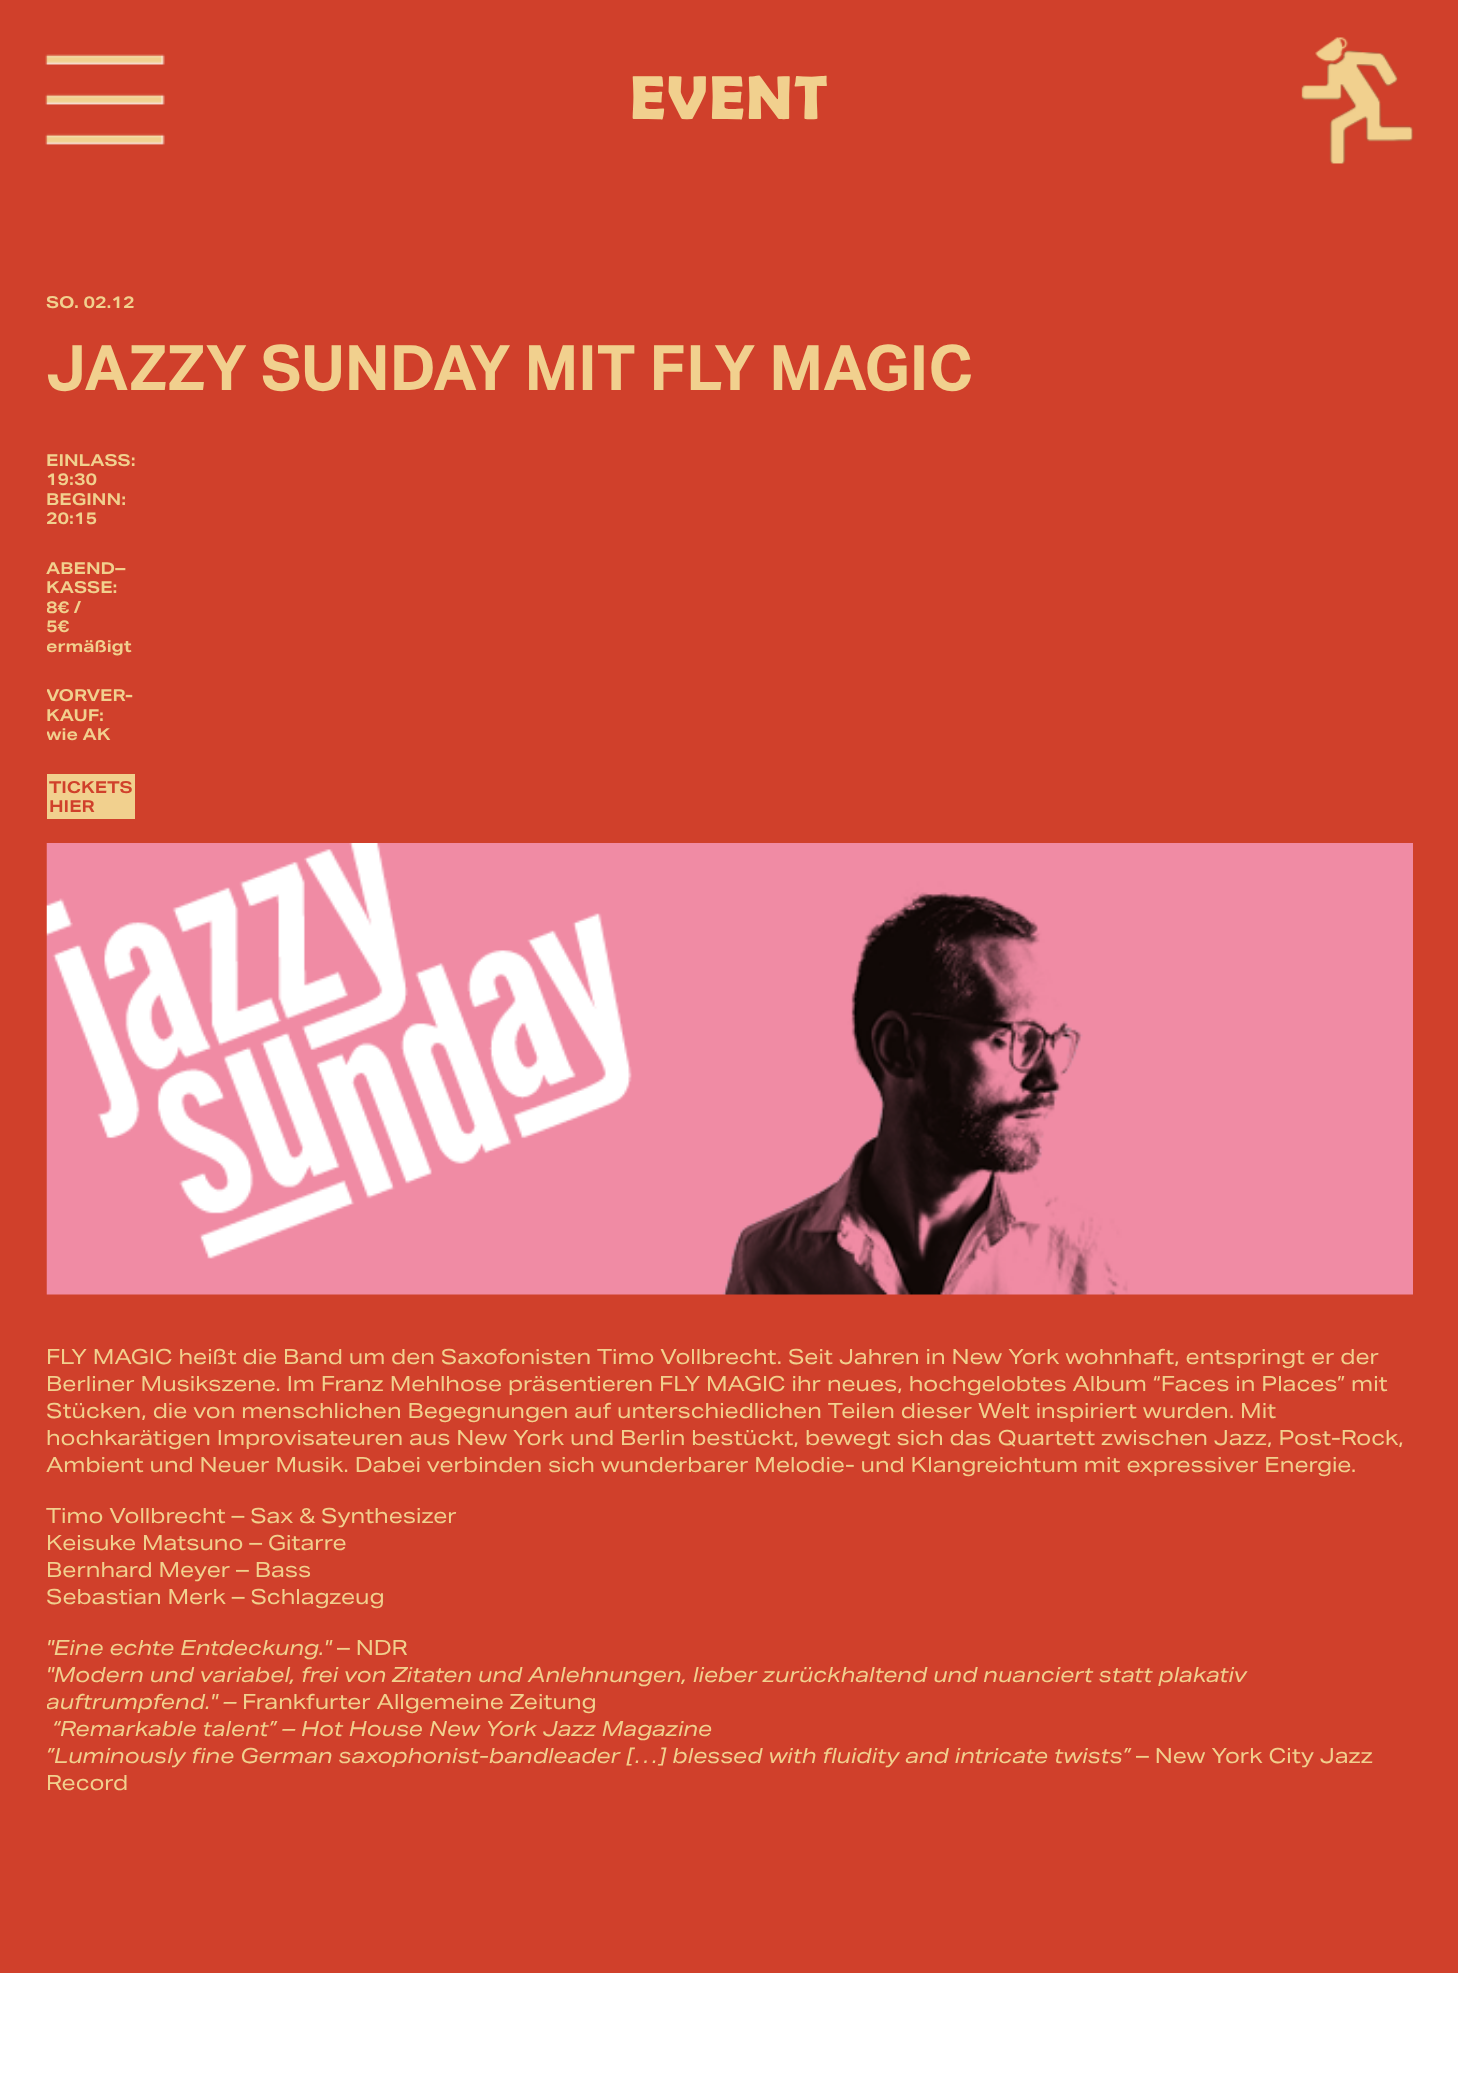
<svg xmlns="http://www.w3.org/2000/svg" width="1458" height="2086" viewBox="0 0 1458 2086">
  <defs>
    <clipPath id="clip1"><rect x="47" y="405" width="1366" height="1437"/></clipPath>
  </defs>
  <rect width="100%" height="100%" fill="#ffffff"/>
  <rect x="0" y="0" width="1458" height="1973" fill="#d0402b"/>
  <image x="45" y="54" width="120" height="91" href="img1.png"/>
  <text x="630" y="119" font-family="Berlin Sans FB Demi" font-size="62.6" font-weight="600" letter-spacing="1.5" fill="#f1d08e">EVENT</text>
  <image x="1301" y="37" width="112" height="127" href="img2.png"/>
  <text x="46" y="308" font-family="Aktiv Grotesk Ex" font-size="16.5" font-weight="bold" fill="#f1d08e">SO. 02.12</text>
  <text x="46" y="390" font-family="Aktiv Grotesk" font-size="62.6" font-weight="bold" fill="#f1d08e">JAZZY SUNDAY MIT FLY MAGIC</text>
  <text x="46" y="466" font-family="Aktiv Grotesk Ex" font-size="16.5" font-weight="bold" fill="#f1d08e">EINLASS:</text>
  <text x="46" y="485" font-family="Aktiv Grotesk Ex" font-size="16.5" font-weight="bold" fill="#f1d08e">19:30</text>
  <text x="46" y="505" font-family="Aktiv Grotesk Ex" font-size="16.5" font-weight="bold" fill="#f1d08e">BEGINN:</text>
  <g clip-path="url(#clip1)">
    <text x="46" y="524" font-family="Aktiv Grotesk Ex" font-size="16.5" font-weight="bold" fill="#f1d08e">20:15</text>
  </g>
  <text x="46" y="574" font-family="Aktiv Grotesk Ex" font-size="16.5" font-weight="bold" fill="#f1d08e">ABEND–</text>
  <text x="46" y="593" font-family="Aktiv Grotesk Ex" font-size="16.5" font-weight="bold" fill="#f1d08e">KASSE:</text>
  <g clip-path="url(#clip1)">
    <text x="46" y="613" font-family="Aktiv Grotesk Ex" font-size="16.5" font-weight="bold" fill="#f1d08e">8€ /</text>
  </g>
  <text x="46" y="632" font-family="Aktiv Grotesk Ex" font-size="16.5" font-weight="bold" fill="#f1d08e">5€</text>
  <g clip-path="url(#clip1)">
    <text x="46" y="652" font-family="Aktiv Grotesk Ex" font-size="16.5" font-weight="bold" fill="#f1d08e">ermäßigt</text>
    <text x="46" y="701" font-family="Aktiv Grotesk Ex" font-size="16.5" font-weight="bold" fill="#f1d08e">VORVER-</text>
  </g>
  <text x="46" y="721" font-family="Aktiv Grotesk Ex" font-size="16.5" font-weight="bold" fill="#f1d08e">KAUF:</text>
  <g clip-path="url(#clip1)">
    <text x="46" y="740" font-family="Aktiv Grotesk Ex" font-size="16.5" font-weight="bold" fill="#f1d08e">wie AK</text>
  </g>
  <rect x="47" y="774" width="88" height="45" fill="#f1d08e"/>
  <text x="49" y="793" font-family="Aktiv Grotesk Ex" font-size="16.5" font-weight="bold" fill="#d0402b">TICKETS</text>
  <text x="49" y="812" font-family="Aktiv Grotesk Ex" font-size="16.5" font-weight="bold" fill="#d0402b">HIER</text>
  <image x="46" y="843" width="1367" height="452" href="img3.png"/>
  <text x="46" y="1364" font-family="Aktiv Grotesk Ex" font-size="21" fill="#f1d08e">FLY MAGIC heißt die Band um den Saxofonisten Timo Vollbrecht. Seit Jahren in New York wohnhaft, entspringt er der</text>
  <text x="46" y="1391" font-family="Aktiv Grotesk Ex" font-size="21" fill="#f1d08e">Berliner Musikszene. Im Franz Mehlhose präsentieren FLY MAGIC ihr neues, hochgelobtes Album “Faces in Places” mit</text>
  <text x="46" y="1418" font-family="Aktiv Grotesk Ex" font-size="21" fill="#f1d08e">Stücken, die von menschlichen Begegnungen auf unterschiedlichen Teilen dieser Welt inspiriert wurden. Mit</text>
  <text x="46" y="1445" font-family="Aktiv Grotesk Ex" font-size="21" fill="#f1d08e">hochkarätigen Improvisateuren aus New York und Berlin bestückt, bewegt sich das Quartett zwischen Jazz, Post-Rock,</text>
  <text x="46" y="1472" font-family="Aktiv Grotesk Ex" font-size="21" fill="#f1d08e">Ambient und Neuer Musik. Dabei verbinden sich wunderbarer Melodie- und Klangreichtum mit expressiver Energie.</text>
  <text x="46" y="1523" font-family="Aktiv Grotesk Ex" font-size="21" fill="#f1d08e">Timo Vollbrecht – Sax &amp; Synthesizer</text>
  <text x="46" y="1550" font-family="Aktiv Grotesk Ex" font-size="21" fill="#f1d08e">Keisuke Matsuno – Gitarre</text>
  <text x="46" y="1577" font-family="Aktiv Grotesk Ex" font-size="21" fill="#f1d08e">Bernhard Meyer – Bass</text>
  <text x="46" y="1604" font-family="Aktiv Grotesk Ex" font-size="21" fill="#f1d08e">Sebastian Merk – Schlagzeug</text>
  <text x="46" y="1655" font-family="Aktiv Grotesk Ex" font-size="21" font-style="italic" fill="#f1d08e">"Eine echte Entdeckung."</text>
  <text x="337" y="1655" font-family="Aktiv Grotesk Ex" font-size="21" fill="#f1d08e">– NDR</text>
  <text x="46" y="1682" font-family="Aktiv Grotesk Ex" font-size="21" font-style="italic" fill="#f1d08e">"Modern und variabel, frei von Zitaten und Anlehnungen, lieber zurückhaltend und nuanciert statt plakativ</text>
  <g clip-path="url(#clip1)">
    <text x="46" y="1709" font-family="Aktiv Grotesk Ex" font-size="21" font-style="italic" fill="#f1d08e">auftrumpfend." –</text>
  </g>
  <text x="242" y="1709" font-family="Aktiv Grotesk Ex" font-size="21" fill="#f1d08e">Frankfurter Allgemeine Zeitung</text>
  <text x="52" y="1736" font-family="Aktiv Grotesk Ex" font-size="21" font-style="italic" fill="#f1d08e">“Remarkable talent” – Hot House New York Jazz Magazine</text>
  <text x="46" y="1763" font-family="Aktiv Grotesk Ex" font-size="21" font-style="italic" fill="#f1d08e">”Luminously fine German saxophonist-bandleader […] blessed with fluidity and intricate twists”</text>
  <text x="1136" y="1763" font-family="Aktiv Grotesk Ex" font-size="21" fill="#f1d08e">– New York City Jazz</text>
  <text x="46" y="1790" font-family="Aktiv Grotesk Ex" font-size="21" fill="#f1d08e">Record</text>
</svg>
